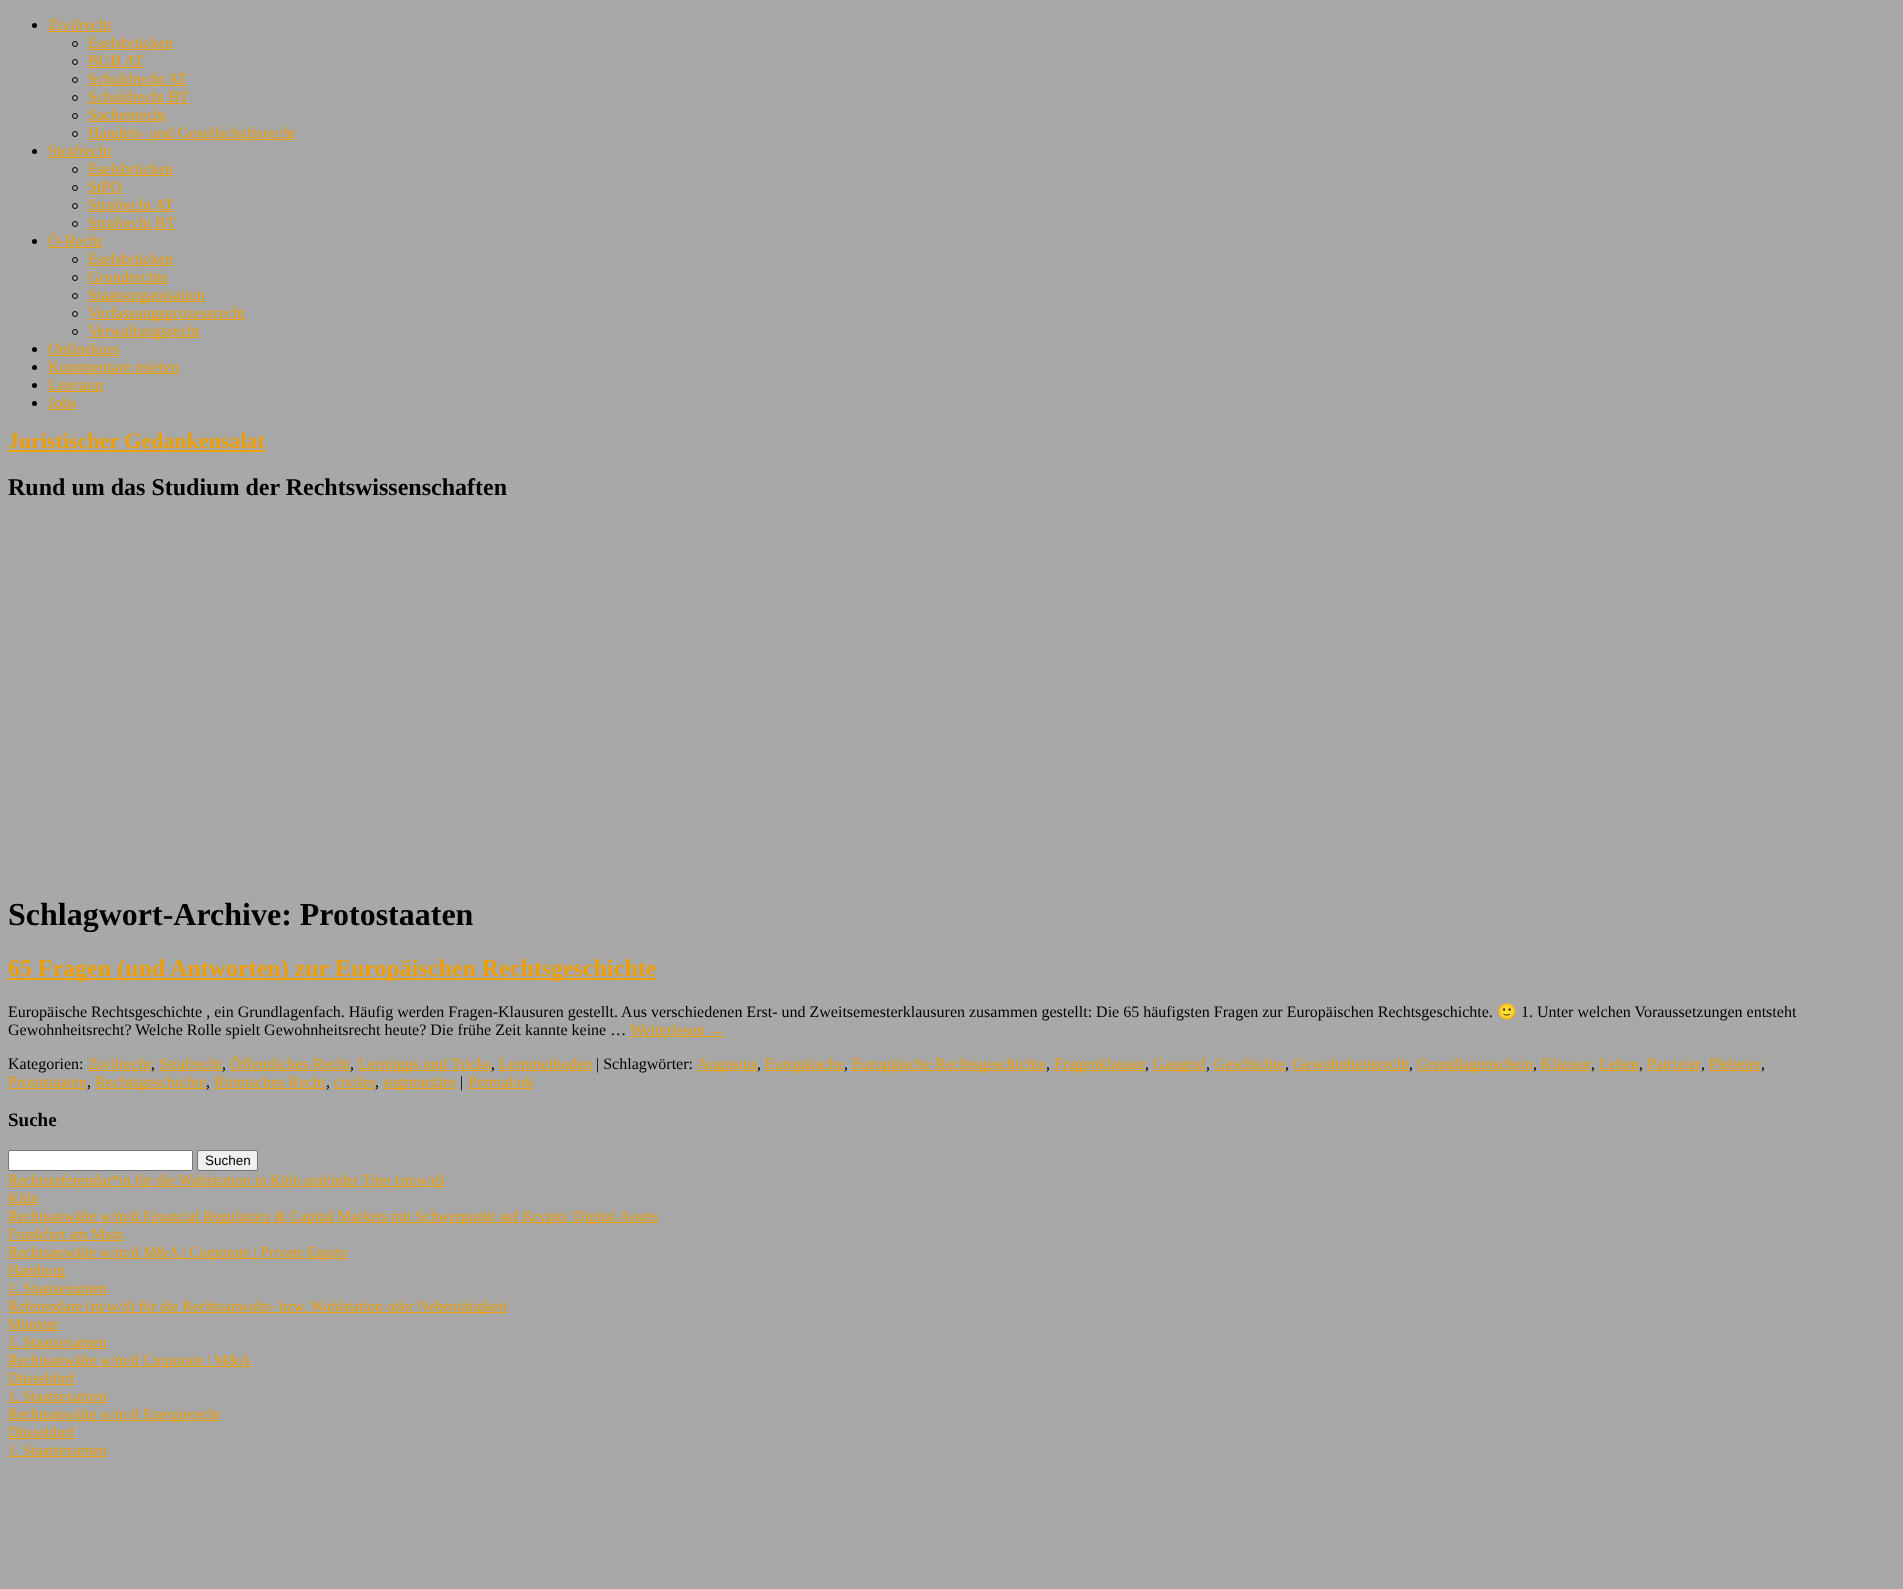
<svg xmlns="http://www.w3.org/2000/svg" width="1903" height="1589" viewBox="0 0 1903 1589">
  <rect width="100%" height="100%" fill="#a8a8a8"/>
  <circle cx="34.5" cy="25.5" r="2.5" fill="#000000"/>
  <text x="48" y="30" font-family="Liberation Serif" font-size="16" fill="#ed9e00">Zivilrecht</text>
  <rect x="48" y="31" width="63" height="1" fill="#ed9e00"/>
  <circle cx="75" cy="44" r="2.5" fill="none" stroke="#000000"/>
  <text x="88" y="48" font-family="Liberation Serif" font-size="16" fill="#ed9e00">Eselsbrücken</text>
  <rect x="88" y="49" width="85" height="1" fill="#ed9e00"/>
  <circle cx="75" cy="62" r="2.5" fill="none" stroke="#000000"/>
  <text x="88" y="66" font-family="Liberation Serif" font-size="16" fill="#ed9e00">BGB AT</text>
  <rect x="88" y="67" width="56" height="1" fill="#ed9e00"/>
  <circle cx="75" cy="80" r="2.5" fill="none" stroke="#000000"/>
  <text x="88" y="84" font-family="Liberation Serif" font-size="16" fill="#ed9e00">Schuldrecht AT</text>
  <rect x="88" y="85" width="99" height="1" fill="#ed9e00"/>
  <circle cx="75" cy="98" r="2.5" fill="none" stroke="#000000"/>
  <text x="88" y="102" font-family="Liberation Serif" font-size="16" fill="#ed9e00">Schuldrecht BT</text>
  <rect x="88" y="103" width="101" height="1" fill="#ed9e00"/>
  <circle cx="75" cy="116" r="2.5" fill="none" stroke="#000000"/>
  <text x="88" y="120" font-family="Liberation Serif" font-size="16" fill="#ed9e00">Sachenrecht</text>
  <rect x="88" y="121" width="78" height="1" fill="#ed9e00"/>
  <circle cx="75" cy="134" r="2.5" fill="none" stroke="#000000"/>
  <text x="88" y="138" font-family="Liberation Serif" font-size="16" fill="#ed9e00">Handels- und Gesellschaftsrecht</text>
  <rect x="88" y="139" width="207" height="1" fill="#ed9e00"/>
  <circle cx="34.5" cy="151.5" r="2.5" fill="#000000"/>
  <text x="48" y="156" font-family="Liberation Serif" font-size="16" fill="#ed9e00">Strafrecht</text>
  <rect x="48" y="157" width="63" height="1" fill="#ed9e00"/>
  <circle cx="75" cy="170" r="2.5" fill="none" stroke="#000000"/>
  <text x="88" y="174" font-family="Liberation Serif" font-size="16" fill="#ed9e00">Eselsbrücken</text>
  <rect x="88" y="175" width="85" height="1" fill="#ed9e00"/>
  <circle cx="75" cy="188" r="2.5" fill="none" stroke="#000000"/>
  <text x="88" y="192" font-family="Liberation Serif" font-size="16" fill="#ed9e00">StPO</text>
  <rect x="88" y="193" width="34" height="1" fill="#ed9e00"/>
  <circle cx="75" cy="206" r="2.5" fill="none" stroke="#000000"/>
  <text x="88" y="210" font-family="Liberation Serif" font-size="16" fill="#ed9e00">Strafrecht AT</text>
  <rect x="88" y="211" width="86" height="1" fill="#ed9e00"/>
  <circle cx="75" cy="224" r="2.5" fill="none" stroke="#000000"/>
  <text x="88" y="228" font-family="Liberation Serif" font-size="16" fill="#ed9e00">Strafrecht BT</text>
  <rect x="88" y="229" width="88" height="1" fill="#ed9e00"/>
  <circle cx="34.5" cy="241.5" r="2.5" fill="#000000"/>
  <text x="48" y="246" font-family="Liberation Serif" font-size="16" fill="#ed9e00">Ö-Recht</text>
  <rect x="48" y="247" width="54" height="1" fill="#ed9e00"/>
  <circle cx="75" cy="260" r="2.5" fill="none" stroke="#000000"/>
  <text x="88" y="264" font-family="Liberation Serif" font-size="16" fill="#ed9e00">Eselsbrücken</text>
  <rect x="88" y="265" width="85" height="1" fill="#ed9e00"/>
  <circle cx="75" cy="278" r="2.5" fill="none" stroke="#000000"/>
  <text x="88" y="282" font-family="Liberation Serif" font-size="16" fill="#ed9e00">Grundrechte</text>
  <rect x="88" y="283" width="80" height="1" fill="#ed9e00"/>
  <circle cx="75" cy="296" r="2.5" fill="none" stroke="#000000"/>
  <rect x="88" y="301" width="117" height="1" fill="#ed9e00"/>
  <text x="88" y="300" font-family="Liberation Serif" font-size="16" fill="#ed9e00">Staatsorganisation</text>
  <circle cx="75" cy="314" r="2.5" fill="none" stroke="#000000"/>
  <rect x="88" y="319" width="157" height="1" fill="#ed9e00"/>
  <text x="88" y="318" font-family="Liberation Serif" font-size="16" fill="#ed9e00">Verfassungsprozessrecht</text>
  <circle cx="75" cy="332" r="2.5" fill="none" stroke="#000000"/>
  <rect x="88" y="337" width="112" height="1" fill="#ed9e00"/>
  <text x="88" y="336" font-family="Liberation Serif" font-size="16" fill="#ed9e00">Verwaltungsrecht</text>
  <circle cx="34.5" cy="349.5" r="2.5" fill="#000000"/>
  <text x="48" y="354" font-family="Liberation Serif" font-size="16" fill="#ed9e00">Onlinekurs</text>
  <rect x="48" y="355" width="71" height="1" fill="#ed9e00"/>
  <circle cx="34.5" cy="367.5" r="2.5" fill="#000000"/>
  <text x="48" y="372" font-family="Liberation Serif" font-size="16" fill="#ed9e00">Kommentare mieten</text>
  <rect x="48" y="373" width="131" height="1" fill="#ed9e00"/>
  <circle cx="34.5" cy="385.5" r="2.5" fill="#000000"/>
  <text x="48" y="390" font-family="Liberation Serif" font-size="16" fill="#ed9e00">Literatur</text>
  <rect x="48" y="391" width="56" height="1" fill="#ed9e00"/>
  <circle cx="34.5" cy="403.5" r="2.5" fill="#000000"/>
  <text x="48" y="408" font-family="Liberation Serif" font-size="16" fill="#ed9e00">Jobs</text>
  <rect x="48" y="409" width="28" height="1" fill="#ed9e00"/>
  <text x="8" y="448" font-family="Liberation Serif" font-size="22" font-weight="bold" fill="#ed9e00">Juristischer Gedankensalat</text>
  <rect x="8" y="450" width="257" height="2" fill="#ed9e00"/>
  <text x="8" y="495" font-family="Liberation Serif" font-size="24" font-weight="bold" fill="#000000">Rund um das Studium der Rechtswissenschaften</text>
  <text x="8" y="925" font-family="Liberation Serif" font-size="32" font-weight="bold" fill="#000000">Schlagwort-Archive: Protostaaten</text>
  <rect x="8" y="978" width="648" height="2" fill="#ed9e00"/>
  <text x="8" y="976" font-family="Liberation Serif" font-size="24" font-weight="bold" fill="#ed9e00">65 Fragen (und Antworten) zur Europäischen Rechtsgeschichte</text>
  <text x="8" y="1017" font-family="Liberation Serif" font-size="16" fill="#000000">Europäische Rechtsgeschichte , ein Grundlagenfach. Häufig werden Fragen-Klausuren gestellt. Aus verschiedenen Erst- und Zweitsemesterklausuren zusammen gestellt: Die 65 häufigsten Fragen zur Europäischen Rechtsgeschichte.</text>
  <text x="1497" y="1017" font-family="Noto Color Emoji" font-size="16" fill="#000000">🙂</text>
  <text x="1521" y="1017" font-family="Liberation Serif" font-size="16" fill="#000000">1. Unter welchen Voraussetzungen entsteht</text>
  <text x="8" y="1035" font-family="Liberation Serif" font-size="16" fill="#000000">Gewohnheitsrecht? Welche Rolle spielt Gewohnheitsrecht heute? Die frühe Zeit kannte keine …</text>
  <text x="630" y="1035" font-family="Liberation Serif" font-size="16" fill="#ed9e00">Weiterlesen →</text>
  <rect x="630" y="1036" width="95" height="1" fill="#ed9e00"/>
  <text x="8" y="1069" font-family="Liberation Serif" font-size="16" fill="#000000">Kategorien:</text>
  <text x="88" y="1069" font-family="Liberation Serif" font-size="16" fill="#ed9e00">Zivilrecht</text>
  <rect x="88" y="1070" width="63" height="1" fill="#ed9e00"/>
  <text x="151" y="1069" font-family="Liberation Serif" font-size="16" fill="#000000">,</text>
  <text x="159" y="1069" font-family="Liberation Serif" font-size="16" fill="#ed9e00">Strafrecht</text>
  <rect x="159" y="1070" width="63" height="1" fill="#ed9e00"/>
  <text x="222" y="1069" font-family="Liberation Serif" font-size="16" fill="#000000">,</text>
  <text x="230" y="1069" font-family="Liberation Serif" font-size="16" fill="#ed9e00">Öffentliches Recht</text>
  <rect x="230" y="1070" width="120" height="1" fill="#ed9e00"/>
  <text x="350" y="1069" font-family="Liberation Serif" font-size="16" fill="#000000">,</text>
  <rect x="358" y="1070" width="133" height="1" fill="#ed9e00"/>
  <text x="358" y="1069" font-family="Liberation Serif" font-size="16" fill="#ed9e00">Lerntipps und Tricks</text>
  <text x="491" y="1069" font-family="Liberation Serif" font-size="16" fill="#000000">,</text>
  <text x="499" y="1069" font-family="Liberation Serif" font-size="16" fill="#ed9e00">Lernmethoden</text>
  <rect x="499" y="1070" width="93" height="1" fill="#ed9e00"/>
  <text x="596" y="1069" font-family="Liberation Serif" font-size="16" fill="#000000">| Schlagwörter:</text>
  <rect x="697" y="1070" width="60" height="1" fill="#ed9e00"/>
  <text x="697" y="1069" font-family="Liberation Serif" font-size="16" fill="#ed9e00">Augustus</text>
  <text x="757" y="1069" font-family="Liberation Serif" font-size="16" fill="#000000">,</text>
  <rect x="765" y="1070" width="79" height="1" fill="#ed9e00"/>
  <text x="765" y="1069" font-family="Liberation Serif" font-size="16" fill="#ed9e00">Europäische</text>
  <text x="844" y="1069" font-family="Liberation Serif" font-size="16" fill="#000000">,</text>
  <rect x="852" y="1070" width="194" height="1" fill="#ed9e00"/>
  <text x="852" y="1069" font-family="Liberation Serif" font-size="16" fill="#ed9e00">Europäische Rechtsgeschichte</text>
  <text x="1046" y="1069" font-family="Liberation Serif" font-size="16" fill="#000000">,</text>
  <rect x="1054" y="1070" width="91" height="1" fill="#ed9e00"/>
  <text x="1054" y="1069" font-family="Liberation Serif" font-size="16" fill="#ed9e00">Fragenklausur</text>
  <text x="1145" y="1069" font-family="Liberation Serif" font-size="16" fill="#000000">,</text>
  <rect x="1153" y="1070" width="53" height="1" fill="#ed9e00"/>
  <text x="1153" y="1069" font-family="Liberation Serif" font-size="16" fill="#ed9e00">Gaugraf</text>
  <text x="1206" y="1069" font-family="Liberation Serif" font-size="16" fill="#000000">,</text>
  <text x="1214" y="1069" font-family="Liberation Serif" font-size="16" fill="#ed9e00">Geschichte</text>
  <rect x="1214" y="1070" width="71" height="1" fill="#ed9e00"/>
  <text x="1285" y="1069" font-family="Liberation Serif" font-size="16" fill="#000000">,</text>
  <text x="1293" y="1069" font-family="Liberation Serif" font-size="16" fill="#ed9e00">Gewohnheitsrecht</text>
  <rect x="1293" y="1070" width="116" height="1" fill="#ed9e00"/>
  <text x="1409" y="1069" font-family="Liberation Serif" font-size="16" fill="#000000">,</text>
  <rect x="1417" y="1070" width="116" height="1" fill="#ed9e00"/>
  <text x="1417" y="1069" font-family="Liberation Serif" font-size="16" fill="#ed9e00">Grundlagenschein</text>
  <text x="1533" y="1069" font-family="Liberation Serif" font-size="16" fill="#000000">,</text>
  <text x="1541" y="1069" font-family="Liberation Serif" font-size="16" fill="#ed9e00">Klausur</text>
  <rect x="1541" y="1070" width="50" height="1" fill="#ed9e00"/>
  <text x="1591" y="1069" font-family="Liberation Serif" font-size="16" fill="#000000">,</text>
  <text x="1599" y="1069" font-family="Liberation Serif" font-size="16" fill="#ed9e00">Lehen</text>
  <rect x="1599" y="1070" width="40" height="1" fill="#ed9e00"/>
  <text x="1639" y="1069" font-family="Liberation Serif" font-size="16" fill="#000000">,</text>
  <text x="1647" y="1069" font-family="Liberation Serif" font-size="16" fill="#ed9e00">Patrizier</text>
  <rect x="1647" y="1070" width="54" height="1" fill="#ed9e00"/>
  <text x="1701" y="1069" font-family="Liberation Serif" font-size="16" fill="#000000">,</text>
  <rect x="1709" y="1070" width="52" height="1" fill="#ed9e00"/>
  <text x="1709" y="1069" font-family="Liberation Serif" font-size="16" fill="#ed9e00">Plebejer</text>
  <text x="1761" y="1069" font-family="Liberation Serif" font-size="16" fill="#000000">,</text>
  <text x="8" y="1087" font-family="Liberation Serif" font-size="16" fill="#ed9e00">Protostaaten</text>
  <rect x="8" y="1088" width="79" height="1" fill="#ed9e00"/>
  <text x="87" y="1087" font-family="Liberation Serif" font-size="16" fill="#000000">,</text>
  <rect x="95" y="1088" width="111" height="1" fill="#ed9e00"/>
  <text x="95" y="1087" font-family="Liberation Serif" font-size="16" fill="#ed9e00">Rechtsgeschichte</text>
  <text x="206" y="1087" font-family="Liberation Serif" font-size="16" fill="#000000">,</text>
  <text x="214" y="1087" font-family="Liberation Serif" font-size="16" fill="#ed9e00">Römisches Recht</text>
  <rect x="214" y="1088" width="112" height="1" fill="#ed9e00"/>
  <text x="326" y="1087" font-family="Liberation Serif" font-size="16" fill="#000000">,</text>
  <text x="334" y="1087" font-family="Liberation Serif" font-size="16" fill="#ed9e00">civiles</text>
  <rect x="334" y="1088" width="41" height="1" fill="#ed9e00"/>
  <text x="375" y="1087" font-family="Liberation Serif" font-size="16" fill="#000000">,</text>
  <rect x="383" y="1088" width="73" height="1" fill="#ed9e00"/>
  <text x="383" y="1087" font-family="Liberation Serif" font-size="16" fill="#ed9e00">segmnetäre</text>
  <text x="460" y="1087" font-family="Liberation Serif" font-size="16" fill="#000000">|</text>
  <text x="468" y="1087" font-family="Liberation Serif" font-size="16" fill="#ed9e00">Permalink</text>
  <rect x="468" y="1088" width="65" height="1" fill="#ed9e00"/>
  <text x="8" y="1126" font-family="Liberation Serif" font-size="19" font-weight="bold" fill="#000000">Suche</text>
  <rect x="8.5" y="1150.5" width="184" height="20" rx="1.5" fill="#ffffff" stroke="#767676"/>
  <rect x="197.5" y="1150.5" width="60" height="20" rx="1.5" fill="#efefef" stroke="#767676"/>
  <text x="205" y="1165" font-family="Liberation Sans" font-size="13.5" fill="#000000">Suchen</text>
  <rect x="8" y="1186" width="436" height="1" fill="#ed9e00"/>
  <text x="8" y="1185" font-family="Liberation Serif" font-size="15.2" fill="#ed9e00">Rechtsreferendar*in für die Wahlstation in Köln und/oder Trier (m/w/d)</text>
  <text x="8" y="1203" font-family="Liberation Serif" font-size="15.2" fill="#ed9e00">Köln</text>
  <rect x="8" y="1204" width="30" height="1" fill="#ed9e00"/>
  <rect x="8" y="1222" width="650" height="1" fill="#ed9e00"/>
  <text x="8" y="1221" font-family="Liberation Serif" font-size="15.2" fill="#ed9e00">Rechtsanwälte w/m/d Financial Regulatory &amp; Capital Markets mit Schwerpunkt auf Krypto/ Digital Assets</text>
  <text x="8" y="1239" font-family="Liberation Serif" font-size="15.2" fill="#ed9e00">Frankfurt am Main</text>
  <rect x="8" y="1240" width="116" height="1" fill="#ed9e00"/>
  <rect x="8" y="1258" width="340" height="1" fill="#ed9e00"/>
  <text x="8" y="1257" font-family="Liberation Serif" font-size="15.2" fill="#ed9e00">Rechtsanwälte w/m/d M&amp;A | Corporate | Private Equity</text>
  <rect x="8" y="1276" width="57" height="1" fill="#ed9e00"/>
  <text x="8" y="1275" font-family="Liberation Serif" font-size="15.2" fill="#ed9e00">Hamburg</text>
  <text x="8" y="1293" font-family="Liberation Serif" font-size="15.2" fill="#ed9e00">1. Staatsexamen</text>
  <rect x="8" y="1294" width="99" height="1" fill="#ed9e00"/>
  <rect x="8" y="1312" width="499" height="1" fill="#ed9e00"/>
  <text x="8" y="1311" font-family="Liberation Serif" font-size="15.2" fill="#ed9e00">Referendare (m/w/d) für die Rechtsanwalts- bzw. Wahlstation oder Nebentätigkeit</text>
  <text x="8" y="1329" font-family="Liberation Serif" font-size="15.2" fill="#ed9e00">Münster</text>
  <rect x="8" y="1330" width="51" height="1" fill="#ed9e00"/>
  <text x="8" y="1347" font-family="Liberation Serif" font-size="15.2" fill="#ed9e00">1. Staatsexamen</text>
  <rect x="8" y="1348" width="99" height="1" fill="#ed9e00"/>
  <rect x="8" y="1366" width="243" height="1" fill="#ed9e00"/>
  <text x="8" y="1365" font-family="Liberation Serif" font-size="15.2" fill="#ed9e00">Rechtsanwälte w/m/d Corporate | M&amp;A</text>
  <text x="8" y="1383" font-family="Liberation Serif" font-size="15.2" fill="#ed9e00">Düsseldorf</text>
  <rect x="8" y="1384" width="67" height="1" fill="#ed9e00"/>
  <text x="8" y="1401" font-family="Liberation Serif" font-size="15.2" fill="#ed9e00">1. Staatsexamen</text>
  <rect x="8" y="1402" width="99" height="1" fill="#ed9e00"/>
  <rect x="8" y="1420" width="212" height="1" fill="#ed9e00"/>
  <text x="8" y="1419" font-family="Liberation Serif" font-size="15.2" fill="#ed9e00">Rechtsanwälte w/m/d Energierecht</text>
  <text x="8" y="1437" font-family="Liberation Serif" font-size="15.2" fill="#ed9e00">Düsseldorf</text>
  <rect x="8" y="1438" width="67" height="1" fill="#ed9e00"/>
  <text x="8" y="1455" font-family="Liberation Serif" font-size="15.2" fill="#ed9e00">1. Staatsexamen</text>
  <rect x="8" y="1456" width="99" height="1" fill="#ed9e00"/>
</svg>
